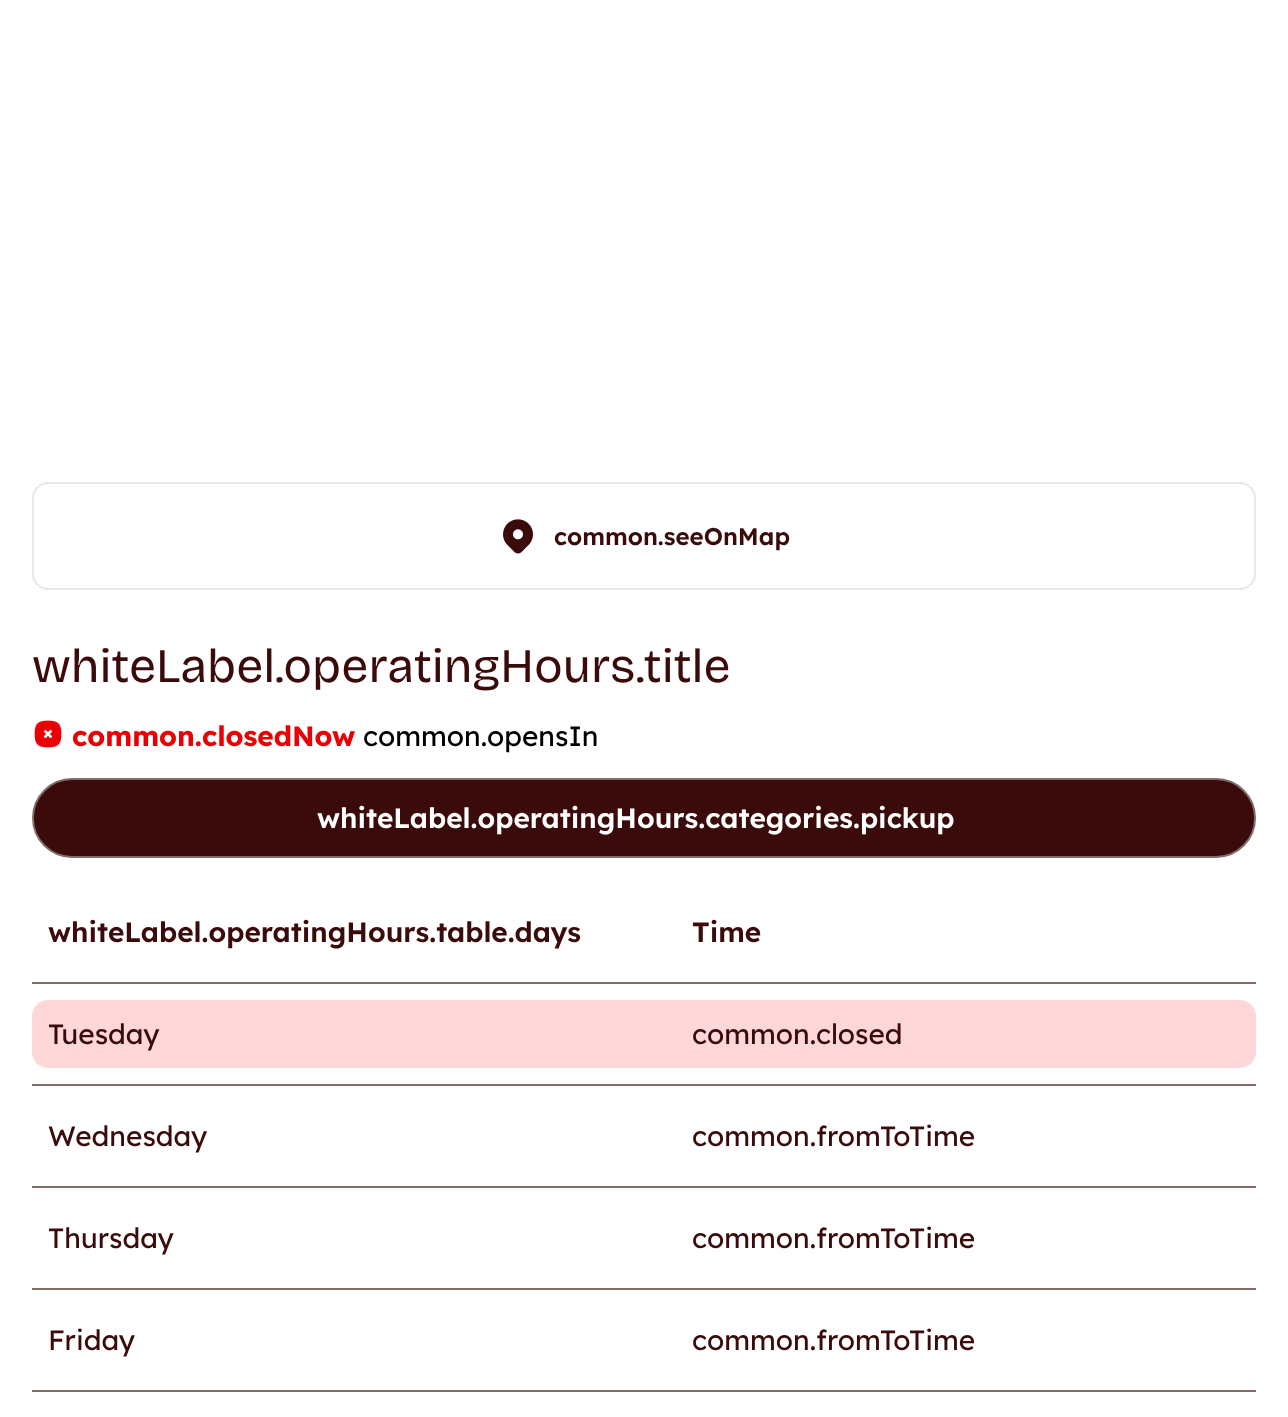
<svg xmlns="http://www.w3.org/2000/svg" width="1288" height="1417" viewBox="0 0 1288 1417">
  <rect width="100%" height="100%" fill="#ffffff"/>
  <rect x="33" y="483" width="1222" height="106" rx="15" fill="none" stroke="#e7e7e7" stroke-width="2"/>
  <image x="503" y="519" width="30" height="35" href="img1.png"/>
  <text x="554" y="545" font-family="Lexend" font-size="24" font-weight="600" fill="#3b0a0a">common.seeOnMap</text>
  <text x="32" y="682" font-family="Bricolage Grotesque" font-size="48" font-weight="800" fill="#3b0a0a">whiteLabel.operatingHours.title</text>
  <image x="34" y="720" width="28" height="28" href="img2.png"/>
  <text x="72" y="746" font-family="Lexend" font-size="28" font-weight="bold" fill="#ea0004">common.closedNow</text>
  <text x="363" y="746" font-family="Lexend" font-size="28" fill="#000000">common.opensIn</text>
  <rect x="33" y="779" width="1222" height="78" rx="39" fill="#3b0a0a" stroke="#826b6b" stroke-width="2"/>
  <text x="317" y="828" font-family="Lexend" font-size="28" font-weight="600" fill="#ffffff">whiteLabel.operatingHours.categories.pickup</text>
  <rect x="32" y="982" width="1224" height="2" fill="#826b6b"/>
  <text x="48" y="942" font-family="Lexend" font-size="28" font-weight="600" fill="#3b0a0a">whiteLabel.operatingHours.table.days</text>
  <text x="692" y="942" font-family="Lexend" font-size="28" font-weight="600" fill="#3b0a0a">Time</text>
  <rect x="32" y="1084" width="1224" height="2" fill="#826b6b"/>
  <rect x="32" y="1000" width="1224" height="68" rx="16" fill="#fed8d8"/>
  <text x="48" y="1044" font-family="Lexend" font-size="28" fill="#3b0a0a">Tuesday</text>
  <text x="692" y="1044" font-family="Lexend" font-size="28" fill="#3b0a0a">common.closed</text>
  <rect x="32" y="1186" width="1224" height="2" fill="#826b6b"/>
  <text x="48" y="1146" font-family="Lexend" font-size="28" fill="#3b0a0a">Wednesday</text>
  <text x="692" y="1146" font-family="Lexend" font-size="28" fill="#3b0a0a">common.fromToTime</text>
  <rect x="32" y="1288" width="1224" height="2" fill="#826b6b"/>
  <text x="48" y="1248" font-family="Lexend" font-size="28" fill="#3b0a0a">Thursday</text>
  <text x="692" y="1248" font-family="Lexend" font-size="28" fill="#3b0a0a">common.fromToTime</text>
  <rect x="32" y="1390" width="1224" height="2" fill="#826b6b"/>
  <text x="48" y="1350" font-family="Lexend" font-size="28" fill="#3b0a0a">Friday</text>
  <text x="692" y="1350" font-family="Lexend" font-size="28" fill="#3b0a0a">common.fromToTime</text>
</svg>
